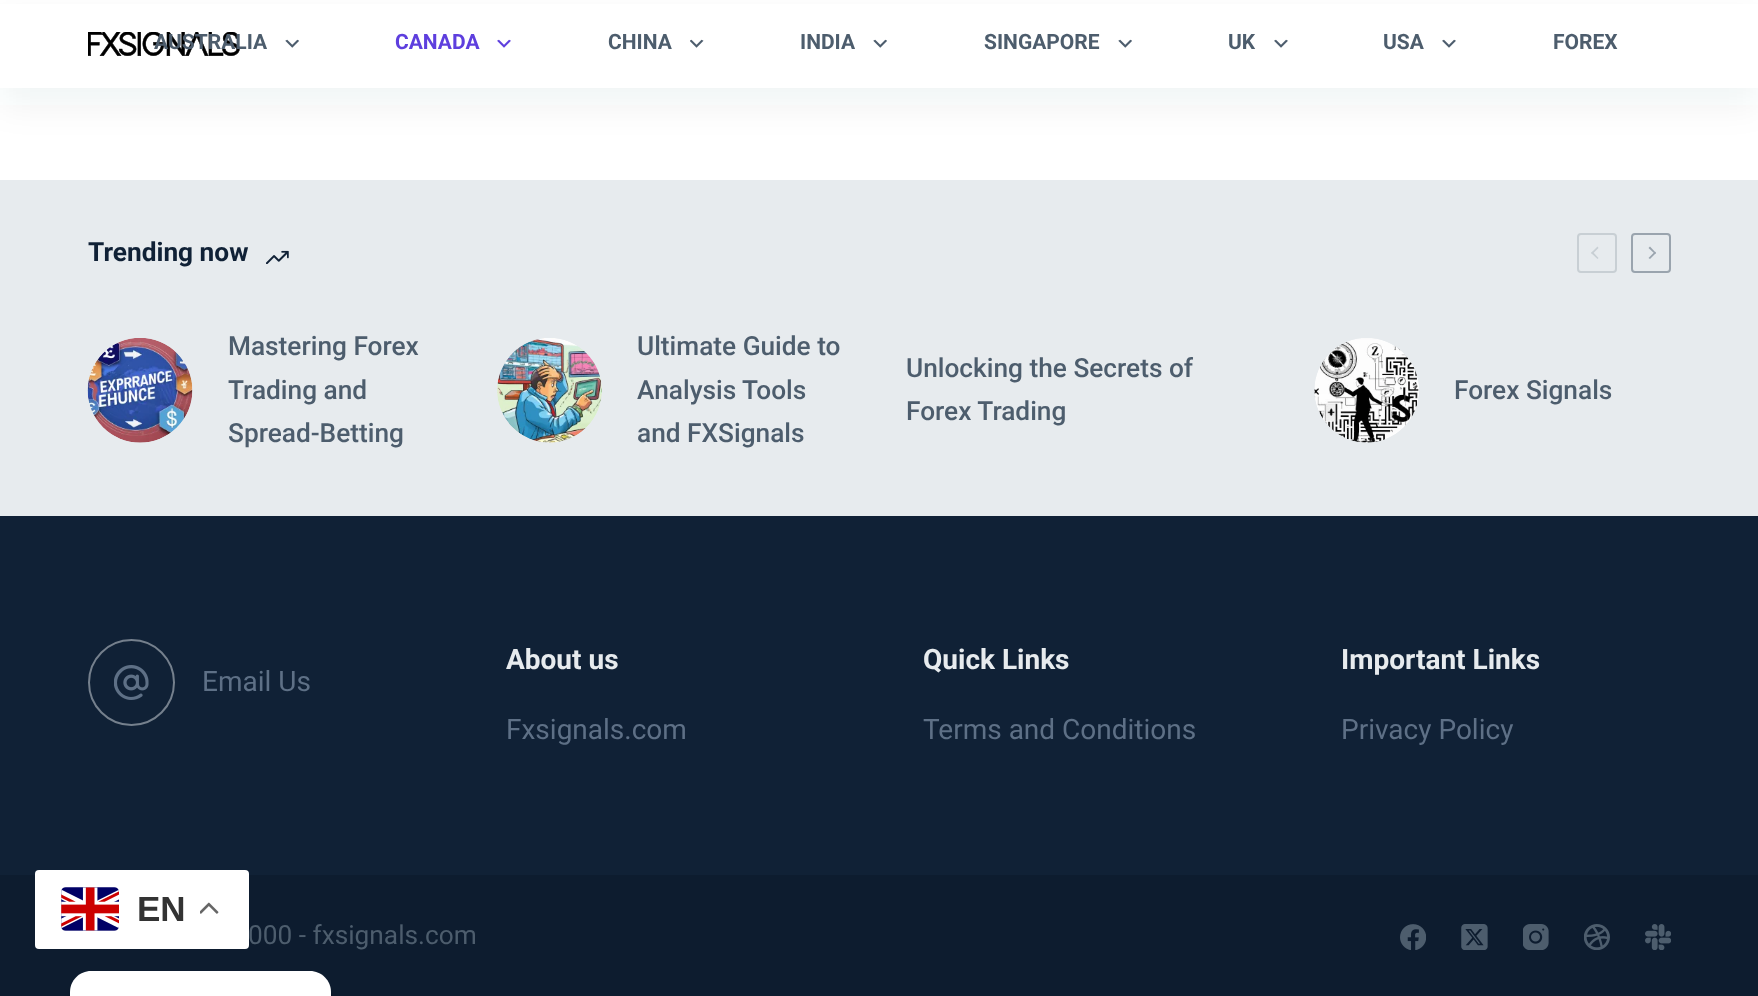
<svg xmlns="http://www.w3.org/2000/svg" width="1758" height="996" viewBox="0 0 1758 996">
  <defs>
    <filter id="blur1" x="-50%" y="-200%" width="200%" height="500%"><feGaussianBlur stdDeviation="17.5"/></filter>
    <filter id="blur2" x="-50%" y="-200%" width="200%" height="500%"><feGaussianBlur stdDeviation="5"/></filter>
  </defs>
  <rect width="100%" height="100%" fill="#ffffff"/>
  <rect x="0" y="18" width="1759" height="87" fill="#2b3d4f" fill-opacity="0.06" filter="url(#blur1)"/>
  <rect x="0" y="4" width="1758" height="84" fill="#ffffff"/>
  <image x="88" y="32" width="152" height="24" href="img1.png"/>
  <text x="154" y="49" font-family="Roboto" font-size="21" font-weight="bold" fill="#4d5d6d">AUSTRALIA</text>
  <image x="285" y="39" width="14" height="9" href="img2.png"/>
  <text x="395" y="49" font-family="Roboto" font-size="21" font-weight="bold" fill="#5e3fde">CANADA</text>
  <image x="497" y="39" width="14" height="9" href="img3.png"/>
  <text x="608" y="49" font-family="Roboto" font-size="21" font-weight="bold" fill="#4d5d6d">CHINA</text>
  <image x="690" y="39" width="14" height="9" href="img4.png"/>
  <text x="800" y="49" font-family="Roboto" font-size="21" font-weight="bold" fill="#4d5d6d">INDIA</text>
  <image x="873" y="39" width="14" height="9" href="img2.png"/>
  <text x="984" y="49" font-family="Roboto" font-size="21" font-weight="bold" fill="#4d5d6d">SINGAPORE</text>
  <image x="1118" y="39" width="14" height="9" href="img2.png"/>
  <text x="1228" y="49" font-family="Roboto" font-size="21" font-weight="bold" fill="#4d5d6d">UK</text>
  <image x="1274" y="39" width="14" height="9" href="img5.png"/>
  <text x="1383" y="49" font-family="Roboto" font-size="21" font-weight="bold" fill="#4d5d6d">USA</text>
  <image x="1442" y="39" width="14" height="9" href="img5.png"/>
  <text x="1553" y="49" font-family="Roboto" font-size="21" font-weight="bold" fill="#4d5d6d">FOREX</text>
  <rect x="0" y="180" width="1758" height="336" fill="#e7ebee"/>
  <text x="88" y="261" font-family="Roboto" font-size="26.25" font-weight="bold" fill="#102136">Trending now</text>
  <image x="266" y="250" width="23" height="14" href="img6.png"/>
  <rect x="1578" y="234" width="38" height="38" rx="3" fill="none" stroke="#c8cfd4" stroke-width="2"/>
  <path d="M1591 253L1597.5 246.5L1598.5 248L1592.5 254Z" fill="#c8cfd4"/>
  <path d="M1591 253L1592.5 251.5L1598.5 258L1597.5 259Z" fill="#c8cfd4"/>
  <rect x="1632" y="234" width="38" height="38" rx="3" fill="none" stroke="#9aa4ae" stroke-width="2"/>
  <path d="M1656 253L1650 259L1648.5 258L1655 251.5Z" fill="#9aa4ae"/>
  <path d="M1656 253L1655 254L1648.5 248L1650 246.5Z" fill="#9aa4ae"/>
  <image x="87" y="338" width="106" height="105" href="img7.png"/>
  <text x="228" y="355" font-family="Roboto" font-size="26.25" font-weight="500" fill="#4d5d6d">Mastering Forex</text>
  <text x="228" y="399" font-family="Roboto" font-size="26.25" font-weight="500" fill="#4d5d6d">Trading and</text>
  <text x="228" y="442" font-family="Roboto" font-size="26.25" font-weight="500" fill="#4d5d6d">Spread-Betting</text>
  <image x="497" y="338" width="105" height="105" href="img8.png"/>
  <text x="637" y="355" font-family="Roboto" font-size="26.25" font-weight="500" fill="#4d5d6d">Ultimate Guide to</text>
  <text x="637" y="399" font-family="Roboto" font-size="26.25" font-weight="500" fill="#4d5d6d">Analysis Tools</text>
  <text x="637" y="442" font-family="Roboto" font-size="26.25" font-weight="500" fill="#4d5d6d">and FXSignals</text>
  <text x="906" y="377" font-family="Roboto" font-size="26.25" font-weight="500" fill="#4d5d6d">Unlocking the Secrets of</text>
  <text x="906" y="420" font-family="Roboto" font-size="26.25" font-weight="500" fill="#4d5d6d">Forex Trading</text>
  <image x="1314" y="338" width="105" height="105" href="img9.png"/>
  <text x="1454" y="399" font-family="Roboto" font-size="26.25" font-weight="500" fill="#4d5d6d">Forex Signals</text>
  <rect x="0" y="516" width="1758" height="359" fill="#102136"/>
  <circle cx="131.5" cy="682.5" r="42.5" fill="none" stroke="#75808d" stroke-width="2"/>
  <image x="114" y="665" width="35" height="35" href="img10.png"/>
  <text x="202" y="691" font-family="Roboto" font-size="28" fill="#5e7086">Email Us</text>
  <text x="506" y="669" font-family="Roboto" font-size="28" font-weight="bold" fill="#e7ebee">About us</text>
  <text x="506" y="739" font-family="Roboto" font-size="28" fill="#5e7086">Fxsignals.com</text>
  <text x="923" y="669" font-family="Roboto" font-size="28" font-weight="bold" fill="#e7ebee">Quick Links</text>
  <text x="923" y="739" font-family="Roboto" font-size="28" fill="#5e7086">Terms and Conditions</text>
  <text x="1341" y="669" font-family="Roboto" font-size="28" font-weight="bold" fill="#e7ebee">Important Links</text>
  <text x="1341" y="739" font-family="Roboto" font-size="28" fill="#5e7086">Privacy Policy</text>
  <rect x="0" y="875" width="1758" height="121" fill="#0d1c2f"/>
  <text x="248" y="944" font-family="Roboto" font-size="26.25" fill="#4d5d6d">000 - fxsignals.com</text>
  <image x="1400" y="924" width="26" height="26" href="img11.png"/>
  <image x="1461" y="924" width="27" height="26" href="img12.png"/>
  <image x="1523" y="924" width="26" height="26" href="img13.png"/>
  <image x="1584" y="924" width="26" height="26" href="img14.png"/>
  <image x="1645" y="924" width="26" height="26" href="img15.png"/>
  <rect x="35" y="870" width="214" height="79" rx="4" fill="#ffffff"/>
  <image x="61" y="887" width="58" height="44" href="img16.png"/>
  <text x="137" y="921" font-family="Liberation Sans" font-size="35" font-weight="bold" fill="#333333">EN</text>
  <image x="200" y="902" width="19" height="12" href="img17.png"/>
  <rect x="70" y="982" width="261" height="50" rx="21" fill="#000000" fill-opacity="0.23" filter="url(#blur2)"/>
  <path d="M91 971H310C321.5 971 331 980.5 331 992V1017H70V992C70 980.5 79.5 971 91 971Z" fill="#ffffff"/>
</svg>
